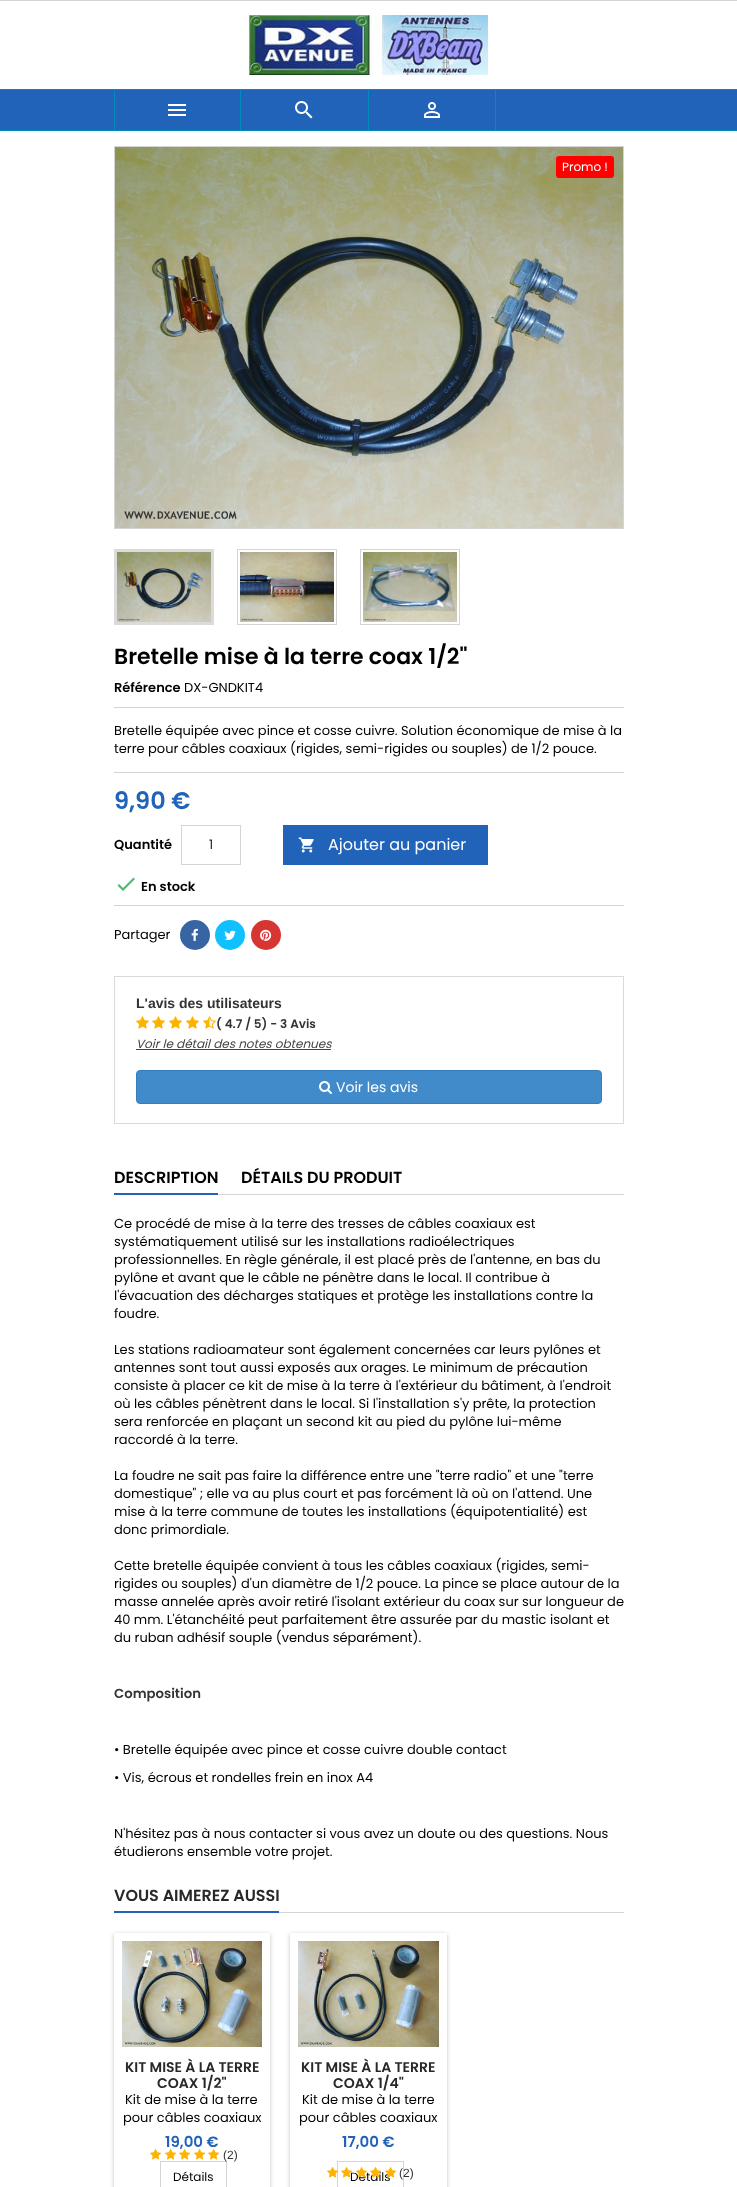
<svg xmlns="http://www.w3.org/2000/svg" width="737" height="2187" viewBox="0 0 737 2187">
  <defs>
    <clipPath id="clip1"><path d="M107 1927H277V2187H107ZM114 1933H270V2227H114Z" clip-rule="evenodd"/></clipPath>
    <filter id="blur1" x="-50%" y="-200%" width="200%" height="500%"><feGaussianBlur stdDeviation="2"/></filter>
    <clipPath id="clip2"><path d="M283 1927H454V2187H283ZM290 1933H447V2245H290Z" clip-rule="evenodd"/></clipPath>
  </defs>
  <rect width="100%" height="100%" fill="#ffffff"/>
  <rect x="0" y="0" width="737" height="1" fill="#d6d4d4"/>
  <image x="249" y="15" width="239" height="60" href="img1.png"/>
  <rect x="0" y="90" width="737" height="40" fill="#2163b9"/>
  <rect x="0" y="89" width="737" height="1" fill="#008bbb"/>
  <rect x="0" y="130" width="737" height="1" fill="#008bbb"/>
  <rect x="240" y="90" width="1" height="40" fill="#008bbb"/>
  <rect x="114" y="90" width="1" height="40" fill="#008bbb"/>
  <image x="168" y="104" width="18" height="12" href="img2.png"/>
  <rect x="368" y="90" width="1" height="40" fill="#008bbb"/>
  <image x="295" y="101" width="18" height="18" href="img3.png"/>
  <rect x="495" y="90" width="1" height="40" fill="#008bbb"/>
  <image x="424" y="102" width="16" height="16" href="img4.png"/>
  <rect x="114.5" y="146.5" width="509" height="382" fill="none" stroke="#d6d4d4"/>
  <image x="115" y="147" width="508" height="381" href="img5.png"/>
  <rect x="115.5" y="550.5" width="97" height="73" fill="none" stroke="#dbdbdb" stroke-width="3"/>
  <rect x="237.5" y="549.5" width="99" height="75" fill="none" stroke="#d6d4d4"/>
  <rect x="360.5" y="549.5" width="99" height="75" fill="none" stroke="#d6d4d4"/>
  <image x="117" y="552" width="94" height="70" href="img6.png"/>
  <image x="240" y="552" width="94" height="70" href="img7.png"/>
  <image x="363" y="552" width="94" height="70" href="img8.png"/>
  <rect x="556" y="156" width="58" height="22" rx="3" fill="#ff0000"/>
  <text x="562" y="171" font-family="Poppins" font-size="12" fill="#ffffff">Promo !</text>
  <text x="114" y="664" font-family="Poppins" font-size="22" font-weight="600" fill="#000000">Bretelle mise à la terre coax 1/2"</text>
  <text x="114" y="692" font-family="Poppins" font-size="13" font-weight="600" fill="#000000">Référence</text>
  <text x="184" y="692" font-family="Poppins" font-size="13" fill="#000000">DX-GNDKIT4</text>
  <rect x="114" y="707" width="510" height="1" fill="#d6d4d4"/>
  <text x="114" y="735" font-family="Poppins" font-size="13" fill="#000000">Bretelle équipée avec pince et cosse cuivre. Solution économique de mise à la</text>
  <text x="114" y="753" font-family="Poppins" font-size="13" fill="#000000">terre pour câbles coaxiaux (rigides, semi-rigides ou souples) de 1/2 pouce.</text>
  <rect x="114" y="772" width="510" height="1" fill="#d6d4d4"/>
  <text x="114" y="809" font-family="Poppins" font-size="24" font-weight="600" fill="#2163b9">9,90 €</text>
  <text x="114" y="849" font-family="Poppins" font-size="13" font-weight="600" fill="#000000">Quantité</text>
  <rect x="181.5" y="825.5" width="59" height="39" fill="none" stroke="#d6d4d4"/>
  <text x="209" y="849" font-family="Poppins" font-size="13" fill="#282828">1</text>
  <rect x="283" y="825" width="205" height="40" fill="#2163b9"/>
  <image x="298" y="837" width="16" height="16" href="img9.png"/>
  <text x="328" y="850" font-family="Poppins" font-size="16" fill="#ffffff">Ajouter au panier</text>
  <path d="M123 888L133.5 877.5L135 879L123 891L117.5 885.5L119 884Z" fill="#4cbb6c"/>
  <text x="141" y="891" font-family="Poppins" font-size="13" font-weight="600" fill="#000000">En stock</text>
  <rect x="114" y="905" width="510" height="1" fill="#d6d4d4"/>
  <text x="114" y="939" font-family="Poppins" font-size="13" fill="#000000">Partager</text>
  <circle cx="195" cy="935" r="15" fill="#3765a3"/>
  <image x="191" y="928" width="7" height="13" href="img10.png"/>
  <circle cx="230" cy="935" r="15" fill="#11c1ff"/>
  <image x="224" y="930" width="12" height="10" href="img11.png"/>
  <circle cx="266" cy="935" r="15" fill="#d73532"/>
  <image x="260" y="929" width="12" height="12" href="img12.png"/>
  <rect x="114.5" y="976.5" width="509" height="147" fill="none" stroke="#dadada"/>
  <text x="136" y="1008" font-family="Liberation Sans" font-size="14" font-weight="bold" fill="#333333">L'avis des utilisateurs</text>
  <image x="136" y="1016" width="13" height="13" href="img13.png"/>
  <image x="152" y="1016" width="13" height="13" href="img13.png"/>
  <image x="169" y="1016" width="13" height="13" href="img13.png"/>
  <image x="186" y="1016" width="13" height="13" href="img13.png"/>
  <image x="203" y="1016" width="13" height="13" href="img14.png"/>
  <text x="216" y="1028" font-family="Poppins" font-size="12" font-weight="600" fill="#333333">( 4.7 / 5) - 3 Avis</text>
  <text x="136" y="1048" font-family="Poppins" font-size="12" font-style="italic" fill="#444444">Voir le détail des notes obtenues</text>
  <rect x="136" y="1049" width="195" height="1" fill="#444444"/>
  <rect x="136.5" y="1070.5" width="465" height="33" rx="3.5" fill="#428bca" stroke="#357ebd"/>
  <image x="319" y="1081" width="13" height="13" href="img15.png"/>
  <text x="336" y="1092" font-family="Poppins" font-size="14" fill="#ffffff">Voir les avis</text>
  <rect x="218" y="1194" width="406" height="1" fill="#d6d4d4"/>
  <rect x="114" y="1193" width="104" height="2" fill="#2163b9"/>
  <text x="114" y="1183" font-family="Poppins" font-size="16" font-weight="600" fill="#000000">DESCRIPTION</text>
  <text x="241" y="1183" font-family="Poppins" font-size="16" font-weight="600" fill="#000000">DÉTAILS DU PRODUIT</text>
  <text x="114" y="1228" font-family="Poppins" font-size="13" fill="#000000">Ce procédé de mise à la terre des tresses de câbles coaxiaux est</text>
  <text x="114" y="1246" font-family="Poppins" font-size="13" fill="#000000">systématiquement utilisé sur les installations radioélectriques</text>
  <text x="114" y="1264" font-family="Poppins" font-size="13" fill="#000000">professionnelles. En règle générale, il est placé près de l'antenne, en bas du</text>
  <text x="114" y="1282" font-family="Poppins" font-size="13" fill="#000000">pylône et avant que le câble ne pénètre dans le local. Il contribue à</text>
  <text x="114" y="1300" font-family="Poppins" font-size="13" fill="#000000">l'évacuation des décharges statiques et protège les installations contre la</text>
  <text x="114" y="1318" font-family="Poppins" font-size="13" fill="#000000">foudre.</text>
  <text x="114" y="1354" font-family="Poppins" font-size="13" fill="#000000">Les stations radioamateur sont également concernées car leurs pylônes et</text>
  <text x="114" y="1372" font-family="Poppins" font-size="13" fill="#000000">antennes sont tout aussi exposés aux orages. Le minimum de précaution</text>
  <text x="114" y="1390" font-family="Poppins" font-size="13" fill="#000000">consiste à placer ce kit de mise à la terre à l'extérieur du bâtiment, à l'endroit</text>
  <text x="114" y="1408" font-family="Poppins" font-size="13" fill="#000000">où les câbles pénètrent dans le local. Si l'installation s'y prête, la protection</text>
  <text x="114" y="1426" font-family="Poppins" font-size="13" fill="#000000">sera renforcée en plaçant un second kit au pied du pylône lui-même</text>
  <text x="114" y="1444" font-family="Poppins" font-size="13" fill="#000000">raccordé à la terre.</text>
  <text x="114" y="1480" font-family="Poppins" font-size="13" fill="#000000">La foudre ne sait pas faire la différence entre une "terre radio" et une "terre</text>
  <text x="114" y="1498" font-family="Poppins" font-size="13" fill="#000000">domestique" ; elle va au plus court et pas forcément là où on l'attend. Une</text>
  <text x="114" y="1516" font-family="Poppins" font-size="13" fill="#000000">mise à la terre commune de toutes les installations (équipotentialité) est</text>
  <text x="114" y="1534" font-family="Poppins" font-size="13" fill="#000000">donc primordiale.</text>
  <text x="114" y="1570" font-family="Poppins" font-size="13" fill="#000000">Cette bretelle équipée convient à tous les câbles coaxiaux (rigides, semi-</text>
  <text x="114" y="1588" font-family="Poppins" font-size="13" fill="#000000">rigides ou souples) d'un diamètre de 1/2 pouce. La pince se place autour de la</text>
  <text x="114" y="1606" font-family="Poppins" font-size="13" fill="#000000">masse annelée après avoir retiré l'isolant extérieur du coax sur sur longueur de</text>
  <text x="114" y="1624" font-family="Poppins" font-size="13" fill="#000000">40 mm. L'étanchéité peut parfaitement être assurée par du mastic isolant et</text>
  <text x="114" y="1642" font-family="Poppins" font-size="13" fill="#000000">du ruban adhésif souple (vendus séparément).</text>
  <text x="114" y="1698" font-family="Poppins" font-size="13.25" font-weight="600" fill="#333333">Composition</text>
  <text x="114" y="1754" font-family="Poppins" font-size="13" fill="#000000">• Bretelle équipée avec pince et cosse cuivre double contact</text>
  <text x="114" y="1782" font-family="Poppins" font-size="13" fill="#000000">• Vis, écrous et rondelles frein en inox A4</text>
  <text x="114" y="1838" font-family="Poppins" font-size="13" fill="#000000">N'hésitez pas à nous contacter si vous avez un doute ou des questions. Nous</text>
  <text x="114" y="1856" font-family="Poppins" font-size="13" fill="#000000">étudierons ensemble votre projet.</text>
  <rect x="279" y="1912" width="345" height="1" fill="#d6d4d4"/>
  <rect x="114" y="1911" width="165" height="2" fill="#2163b9"/>
  <text x="114" y="1901" font-family="Poppins" font-size="16" font-weight="600" fill="#282828">VOUS AIMEREZ AUSSI</text>
  <g clip-path="url(#clip1)">
    <rect x="114" y="1934" width="156" height="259" fill="#000000" fill-opacity="0.24" filter="url(#blur1)"/>
  </g>
  <image x="122" y="1941" width="140" height="106" href="img16.png"/>
  <text x="125" y="2072" font-family="Poppins" font-size="14" font-weight="600" fill="#282828">KIT MISE À LA TERRE</text>
  <text x="157" y="2088" font-family="Poppins" font-size="14" font-weight="600" fill="#282828">COAX 1/2"</text>
  <text x="125" y="2104" font-family="Poppins" font-size="13" fill="#000000">Kit de mise à la terre</text>
  <text x="123" y="2122" font-family="Poppins" font-size="13" fill="#000000">pour câbles coaxiaux</text>
  <image x="150" y="2149" width="12" height="11" href="img17.png"/>
  <image x="165" y="2149" width="12" height="11" href="img17.png"/>
  <image x="179" y="2149" width="12" height="11" href="img17.png"/>
  <image x="194" y="2149" width="12" height="11" href="img17.png"/>
  <image x="208" y="2149" width="12" height="11" href="img17.png"/>
  <rect x="160.5" y="2161.5" width="66" height="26" fill="none" stroke="#d6d4d4"/>
  <text x="223" y="2159" font-family="Liberation Sans" font-size="12" fill="#333333">(2)</text>
  <text x="165" y="2147" font-family="Poppins" font-size="15" font-weight="600" fill="#2163b9">19,00 €</text>
  <text x="173" y="2181" font-family="Poppins" font-size="12" fill="#000000">Détails</text>
  <g clip-path="url(#clip2)">
    <rect x="290" y="1934" width="157" height="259" fill="#000000" fill-opacity="0.24" filter="url(#blur1)"/>
  </g>
  <image x="298" y="1941" width="141" height="106" href="img18.png"/>
  <text x="301" y="2072" font-family="Poppins" font-size="14" font-weight="600" fill="#282828">KIT MISE À LA TERRE</text>
  <text x="333" y="2088" font-family="Poppins" font-size="14" font-weight="600" fill="#282828">COAX 1/4"</text>
  <text x="302" y="2104" font-family="Poppins" font-size="13" fill="#000000">Kit de mise à la terre</text>
  <text x="299" y="2122" font-family="Poppins" font-size="13" fill="#000000">pour câbles coaxiaux</text>
  <rect x="337.5" y="2161.5" width="66" height="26" fill="none" stroke="#d6d4d4"/>
  <image x="327" y="2167" width="12" height="11" href="img19.png"/>
  <text x="350" y="2181" font-family="Poppins" font-size="12" fill="#000000">Détails</text>
  <image x="341" y="2167" width="12" height="11" href="img20.png"/>
  <image x="356" y="2167" width="12" height="11" href="img21.png"/>
  <image x="370" y="2167" width="12" height="11" href="img22.png"/>
  <image x="385" y="2167" width="12" height="11" href="img23.png"/>
  <text x="399" y="2177" font-family="Liberation Sans" font-size="12" fill="#333333">(2)</text>
  <text x="342" y="2147" font-family="Poppins" font-size="15" font-weight="600" fill="#2163b9">17,00 €</text>
</svg>
